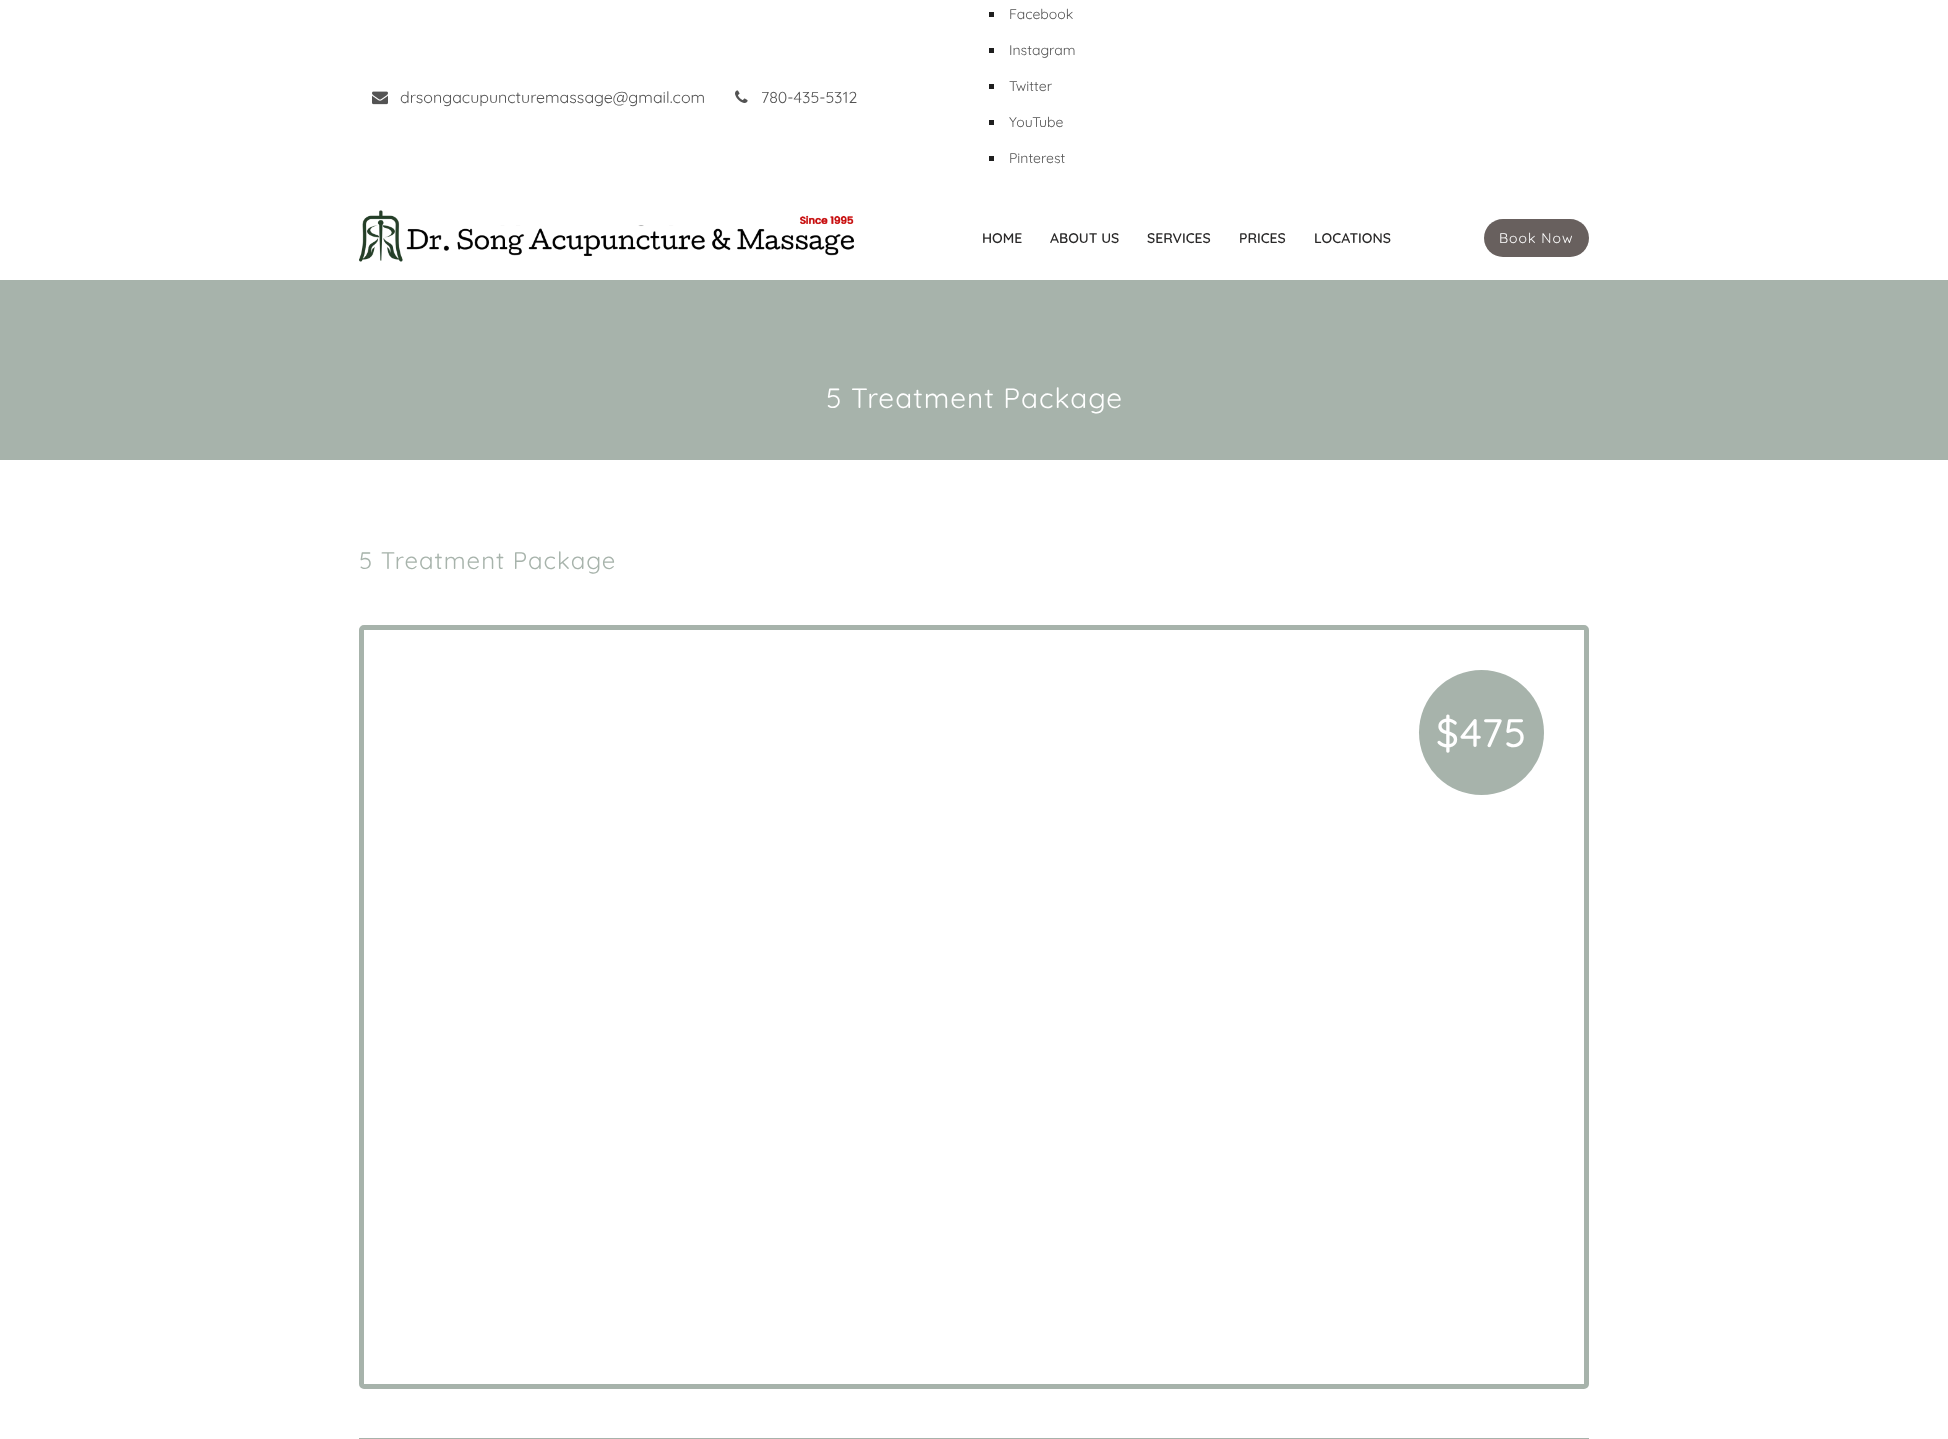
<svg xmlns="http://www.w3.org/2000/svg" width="1948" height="1439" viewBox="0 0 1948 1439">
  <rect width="100%" height="100%" fill="#ffffff"/>
  <image x="372" y="91" width="16" height="14" href="img1.png"/>
  <text x="400" y="103" font-family="Quicksand" font-size="16" font-weight="300" fill="#535353">drsongacupuncturemassage@gmail.com</text>
  <image x="735" y="90" width="13" height="13" href="img2.png"/>
  <text x="761" y="103" font-family="Quicksand" font-size="16" font-weight="300" fill="#535353">780-435-5312</text>
  <rect x="989" y="12" width="5" height="5" fill="#1f1f1f"/>
  <text x="1009" y="19" font-family="Quicksand" font-size="14" font-weight="300" fill="#535353">Facebook</text>
  <rect x="989" y="48" width="5" height="5" fill="#1f1f1f"/>
  <text x="1009" y="55" font-family="Quicksand" font-size="14" font-weight="300" fill="#535353">Instagram</text>
  <rect x="989" y="84" width="5" height="5" fill="#1f1f1f"/>
  <text x="1009" y="91" font-family="Quicksand" font-size="14" font-weight="300" fill="#535353">Twitter</text>
  <rect x="989" y="120" width="5" height="5" fill="#1f1f1f"/>
  <text x="1009" y="127" font-family="Quicksand" font-size="14" font-weight="300" fill="#535353">YouTube</text>
  <rect x="989" y="156" width="5" height="5" fill="#1f1f1f"/>
  <text x="1009" y="163" font-family="Quicksand" font-size="14" font-weight="300" fill="#535353">Pinterest</text>
  <image x="359" y="210" width="495" height="52" href="img3.png"/>
  <text x="982" y="243" font-family="Quicksand" font-size="14" font-weight="600" fill="#2a2929">HOME</text>
  <text x="1050" y="243" font-family="Quicksand" font-size="14" font-weight="600" fill="#2a2929">ABOUT US</text>
  <text x="1147" y="243" font-family="Quicksand" font-size="14" font-weight="600" fill="#2a2929">SERVICES</text>
  <text x="1239" y="243" font-family="Quicksand" font-size="14" font-weight="600" fill="#2a2929">PRICES</text>
  <text x="1314" y="243" font-family="Quicksand" font-size="14" font-weight="600" fill="#2a2929">LOCATIONS</text>
  <rect x="1484" y="219" width="105" height="38" rx="19" fill="#68605e"/>
  <text x="1499" y="243" font-family="Quicksand" font-size="14" font-weight="300" letter-spacing="1" fill="#ffffff">Book Now</text>
  <rect x="0" y="280" width="1948" height="180" fill="#a7b3ab"/>
  <text x="826" y="408" font-family="Quicksand" font-size="28" font-weight="300" letter-spacing="1" fill="#ffffff">5 Treatment Package</text>
  <text x="359" y="569" font-family="Quicksand" font-size="24" font-weight="300" letter-spacing="1" fill="#a7b3ab">5 Treatment Package</text>
  <rect x="361.5" y="627.5" width="1225" height="759" rx="2.5" fill="none" stroke="#a7b3ab" stroke-width="5"/>
  <circle cx="1481.5" cy="732.5" r="62.5" fill="#a7b3ab"/>
  <text x="1436" y="747" font-family="Quicksand" font-size="40" font-weight="500" letter-spacing="1" fill="#ffffff">$475</text>
  <rect x="359" y="1438" width="1230" height="1" fill="#a7b3ab"/>
</svg>
